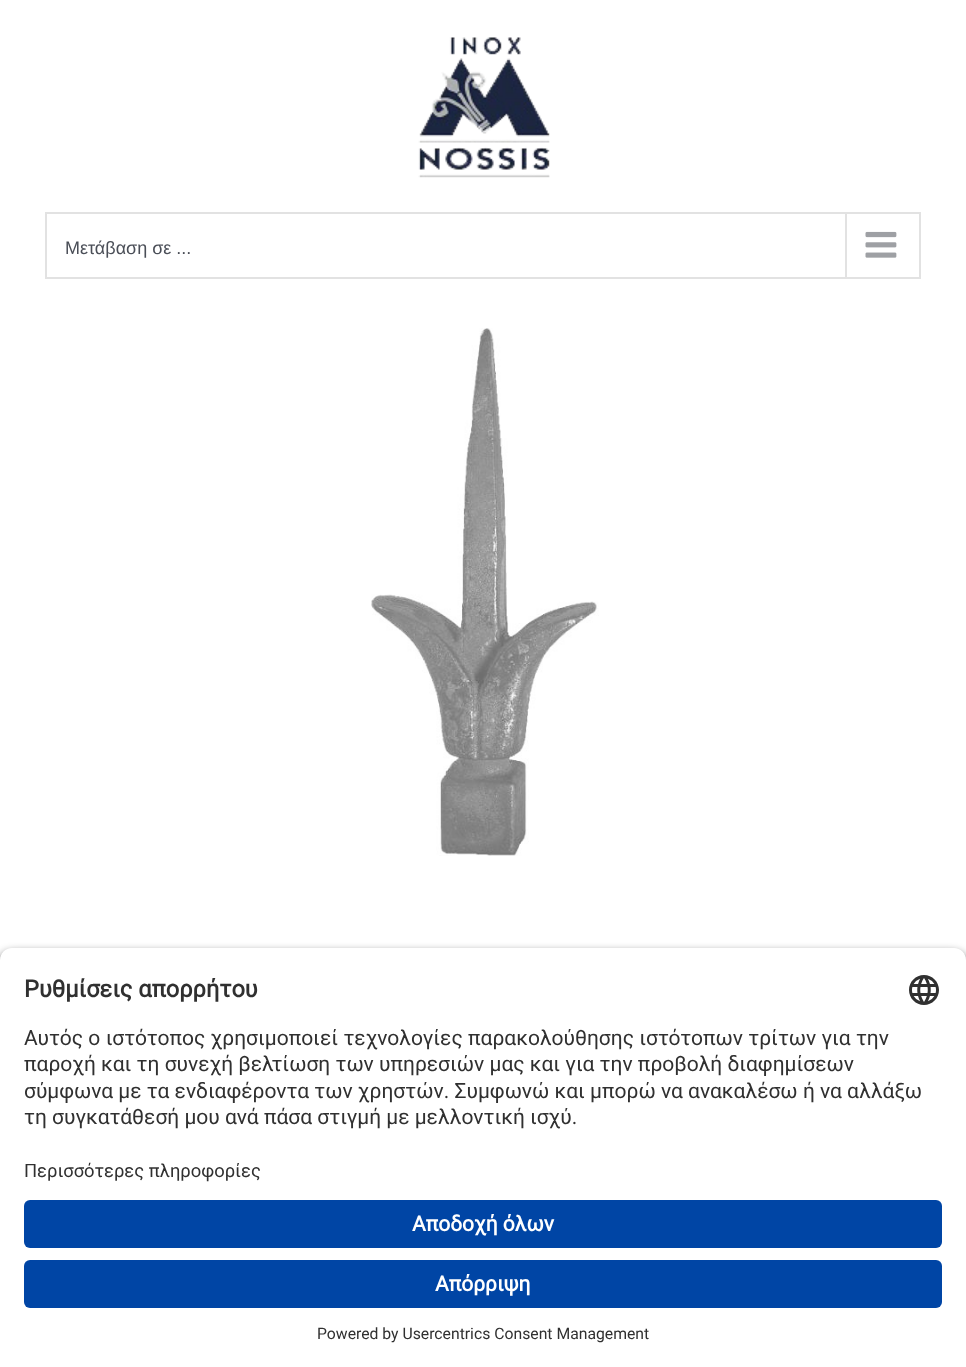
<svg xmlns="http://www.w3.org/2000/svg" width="966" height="1367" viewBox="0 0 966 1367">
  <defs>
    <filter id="blur1" x="-50%" y="-200%" width="200%" height="500%"><feGaussianBlur stdDeviation="5"/></filter>
  </defs>
  <rect width="100%" height="100%" fill="#ffffff"/>
  <image x="418" y="37" width="132" height="141" href="img1.png"/>
  <rect x="46" y="213" width="874" height="65" fill="none" stroke="#e2e2e2" stroke-width="2"/>
  <text x="65" y="254" font-family="Liberation Sans" font-size="18" fill="#4a4e57">Μετάβαση σε ...</text>
  <rect x="845" y="213" width="2" height="65" fill="#e2e2e2"/>
  <image x="865" y="231" width="32" height="27" href="img2.png"/>
  <image x="371" y="328" width="228" height="528" href="img3.png"/>
  <rect x="0" y="953" width="966" height="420" rx="12" fill="#000000" fill-opacity="0.8" filter="url(#blur1)"/>
  <path d="M12 948H954C960.5 948 966 953.5 966 960V1161H0V960C0 953.5 5.5 948 12 948Z" fill="#ffffff"/>
  <text x="24" y="997" font-family="Roboto" font-size="23.6" font-weight="bold" fill="#303030">Ρυθμίσεις απορρήτου</text>
  <image x="909" y="975" width="30" height="30" href="img4.png"/>
  <text x="24" y="1045" word-spacing="0.1" font-family="Roboto" font-size="21" fill="#303030">Αυτός ο ιστότοπος χρησιμοποιεί τεχνολογίες παρακολούθησης ιστότοπων τρίτων για την</text>
  <text x="24" y="1071" font-family="Roboto" font-size="21" fill="#303030">παροχή και τη συνεχή βελτίωση των υπηρεσιών μας και για την προβολή διαφημίσεων</text>
  <text x="24" y="1098" font-family="Roboto" font-size="21" fill="#303030">σύμφωνα με τα ενδιαφέροντα των χρηστών. Συμφωνώ και μπορώ να ανακαλέσω ή να αλλάξω</text>
  <text x="24" y="1124" font-family="Roboto" font-size="21" fill="#303030">τη συγκατάθεσή μου ανά πάσα στιγμή με μελλοντική ισχύ.</text>
  <rect x="0" y="1161" width="966" height="206" fill="#ffffff"/>
  <text x="24" y="1177" font-family="Roboto" font-size="18.4" fill="#303030">Περισσότερες πληροφορίες</text>
  <rect x="24" y="1200" width="918" height="48" rx="6" fill="#0045a5"/>
  <text x="412" y="1231" font-family="Roboto" font-size="21" font-weight="bold" fill="#ffffff">Αποδοχή όλων</text>
  <rect x="24" y="1260" width="918" height="48" rx="6" fill="#0045a5"/>
  <text x="435" y="1291" font-family="Roboto" font-size="21" font-weight="bold" fill="#ffffff">Απόρριψη</text>
  <text x="317" y="1339" font-family="Roboto" font-size="15.75" fill="#303030">Powered by Usercentrics Consent Management</text>
</svg>
